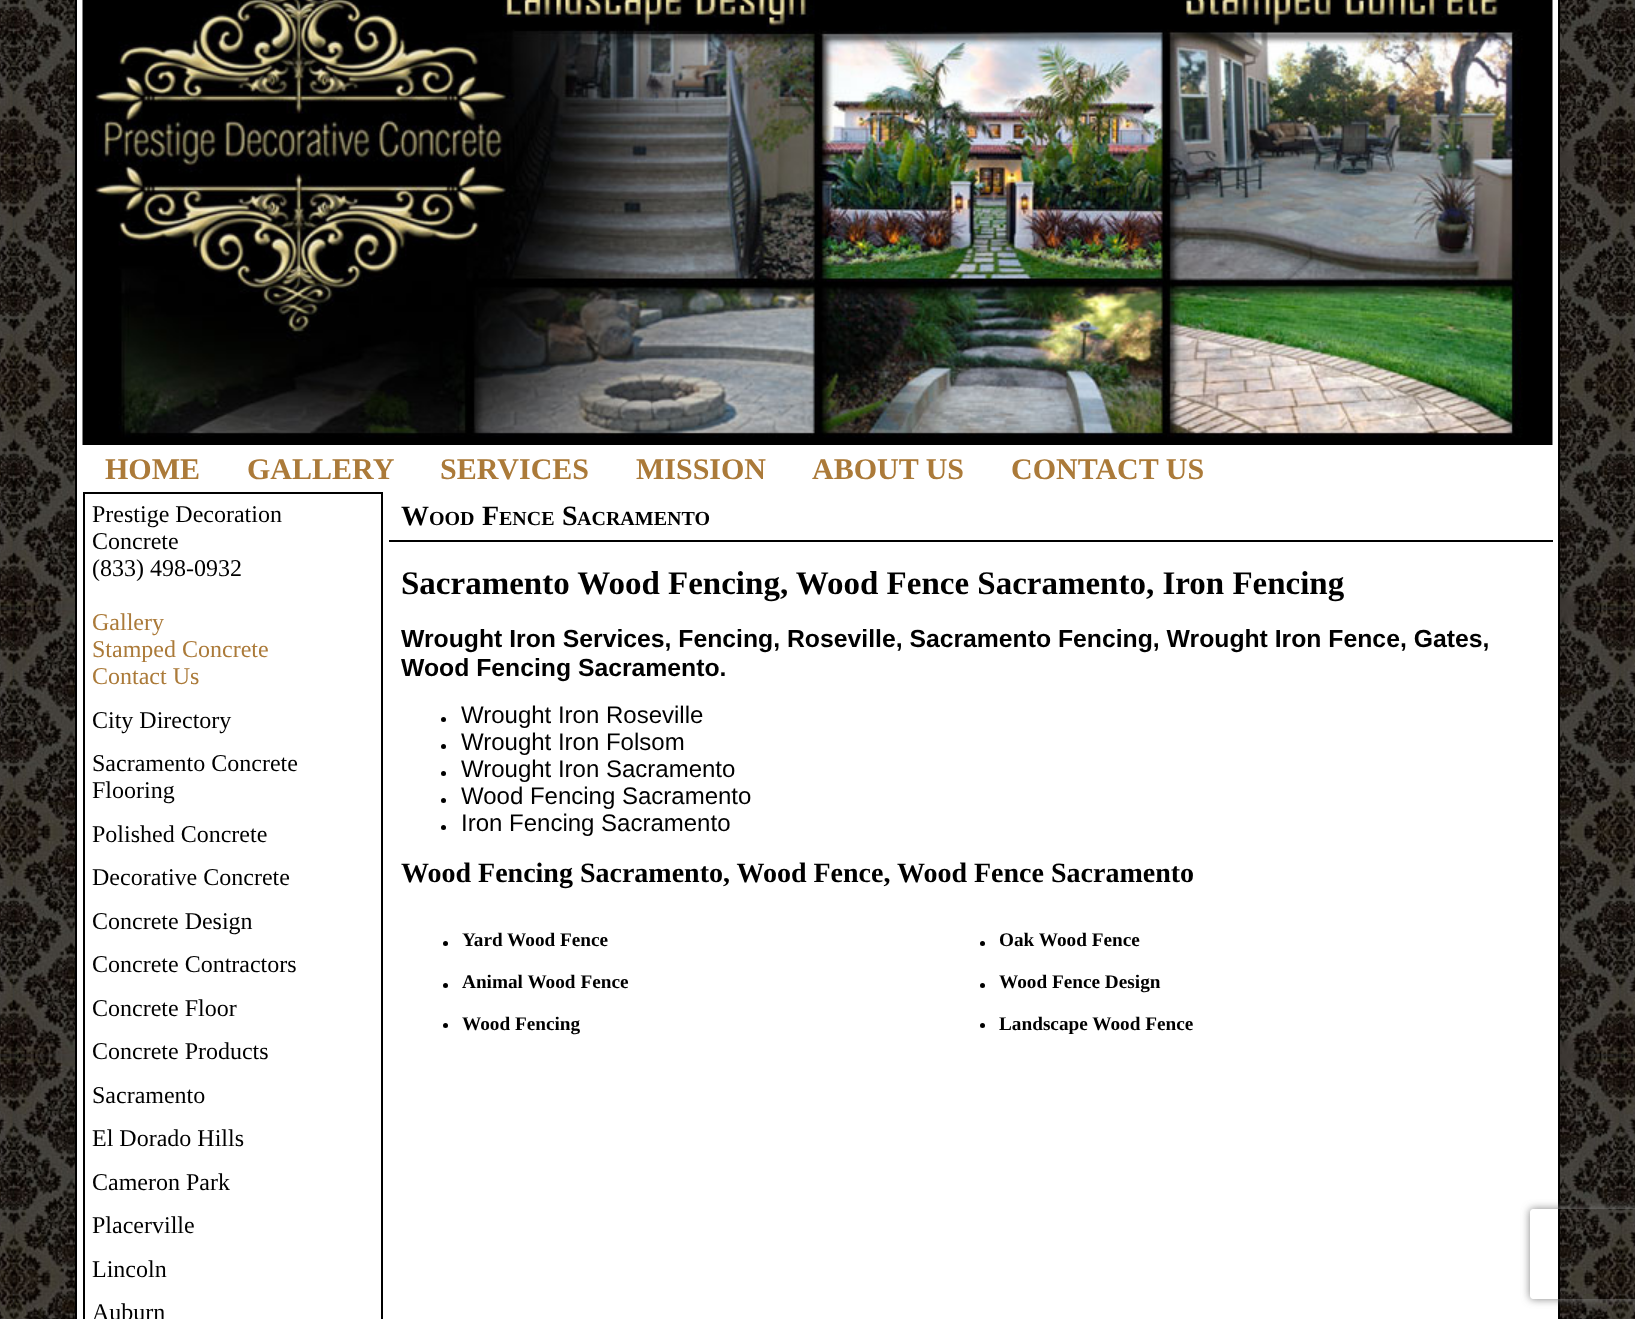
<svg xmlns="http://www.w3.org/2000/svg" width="1635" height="1319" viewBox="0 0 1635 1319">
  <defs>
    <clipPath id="clip1"><path d="M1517 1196H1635V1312H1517ZM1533 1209H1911C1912.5 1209 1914 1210.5 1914 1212V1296C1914 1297.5 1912.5 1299 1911 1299H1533C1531.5 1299 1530 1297.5 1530 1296V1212C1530 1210.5 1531.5 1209 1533 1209Z" clip-rule="evenodd"/></clipPath>
    <filter id="blur1" x="-50%" y="-200%" width="200%" height="500%"><feGaussianBlur stdDeviation="4"/></filter>
  </defs>
  <rect width="100%" height="100%" fill="#ffffff"/>
  <image x="0" y="0" width="1635" height="1319" href="img1.png"/>
  <rect x="76" y="-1" width="1483" height="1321" fill="#ffffff" stroke="#000000" stroke-width="2"/>
  <image x="82" y="0" width="1471" height="445" href="img2.png"/>
  <text x="105" y="479" font-family="Liberation Serif" font-size="30" font-weight="bold" fill="#ab7a39">HOME</text>
  <text x="247" y="479" font-family="Liberation Serif" font-size="30" font-weight="bold" fill="#ab7a39">GALLERY</text>
  <text x="440" y="479" font-family="Liberation Serif" font-size="30" font-weight="bold" fill="#ab7a39">SERVICES</text>
  <text x="636" y="479" font-family="Liberation Serif" font-size="30" font-weight="bold" fill="#ab7a39">MISSION</text>
  <text x="812" y="479" font-family="Liberation Serif" font-size="30" font-weight="bold" fill="#ab7a39">ABOUT US</text>
  <text x="1011" y="479" font-family="Liberation Serif" font-size="30" font-weight="bold" fill="#ab7a39">CONTACT US</text>
  <rect x="84" y="493" width="298" height="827" fill="none" stroke="#000000" stroke-width="2"/>
  <text x="92" y="522" font-family="Liberation Serif" font-size="24" fill="#000000">Prestige Decoration</text>
  <text x="92" y="549" font-family="Liberation Serif" font-size="24" fill="#000000">Concrete</text>
  <text x="92" y="576" font-family="Liberation Serif" font-size="24" fill="#000000">(833) 498-0932</text>
  <text x="92" y="630" font-family="Liberation Serif" font-size="24" fill="#ab7a39">Gallery</text>
  <text x="92" y="657" font-family="Liberation Serif" font-size="24" fill="#ab7a39">Stamped Concrete</text>
  <text x="92" y="684" font-family="Liberation Serif" font-size="24" fill="#ab7a39">Contact Us</text>
  <text x="92" y="728" font-family="Liberation Serif" font-size="24" fill="#000000">City Directory</text>
  <text x="92" y="771" font-family="Liberation Serif" font-size="24" fill="#000000">Sacramento Concrete</text>
  <text x="92" y="798" font-family="Liberation Serif" font-size="24" fill="#000000">Flooring</text>
  <text x="92" y="842" font-family="Liberation Serif" font-size="24" fill="#000000">Polished Concrete</text>
  <text x="92" y="885" font-family="Liberation Serif" font-size="24" fill="#000000">Decorative Concrete</text>
  <text x="92" y="929" font-family="Liberation Serif" font-size="24" fill="#000000">Concrete Design</text>
  <text x="92" y="972" font-family="Liberation Serif" font-size="24" fill="#000000">Concrete Contractors</text>
  <text x="92" y="1016" font-family="Liberation Serif" font-size="24" fill="#000000">Concrete Floor</text>
  <text x="92" y="1059" font-family="Liberation Serif" font-size="24" fill="#000000">Concrete Products</text>
  <text x="92" y="1103" font-family="Liberation Serif" font-size="24" fill="#000000">Sacramento</text>
  <text x="92" y="1146" font-family="Liberation Serif" font-size="24" fill="#000000">El Dorado Hills</text>
  <text x="92" y="1190" font-family="Liberation Serif" font-size="24" fill="#000000">Cameron Park</text>
  <text x="92" y="1233" font-family="Liberation Serif" font-size="24" fill="#000000">Placerville</text>
  <text x="92" y="1277" font-family="Liberation Serif" font-size="24" fill="#000000">Lincoln</text>
  <text x="92" y="1320" font-family="Liberation Serif" font-size="24" fill="#000000">Auburn</text>
  <rect x="389" y="540" width="1164" height="2" fill="#000000"/>
  <text x="401" y="525" font-family="Liberation Serif" font-size="28" font-weight="bold" fill="#000000">W</text>
  <text x="429" y="525" font-family="Liberation Serif" font-size="20" font-weight="bold" fill="#000000">OOD</text>
  <text x="482" y="525" font-family="Liberation Serif" font-size="28" font-weight="bold" fill="#000000">F</text>
  <text x="499" y="525" font-family="Liberation Serif" font-size="20" font-weight="bold" fill="#000000">ENCE</text>
  <text x="562" y="525" font-family="Liberation Serif" font-size="28" font-weight="bold" fill="#000000">S</text>
  <text x="577" y="525" font-family="Liberation Serif" font-size="20" font-weight="bold" fill="#000000">ACRAMENTO</text>
  <text x="401" y="594" font-family="Liberation Serif" font-size="33" font-weight="bold" fill="#000000">Sacramento Wood Fencing, Wood Fence Sacramento, Iron Fencing</text>
  <text x="401" y="647" font-family="Liberation Sans" font-size="24.75" font-weight="bold" fill="#000000">Wrought Iron Services, Fencing, Roseville, Sacramento Fencing, Wrought Iron Fence, Gates,</text>
  <text x="401" y="676" font-family="Liberation Sans" font-size="24.75" font-weight="bold" fill="#000000">Wood Fencing Sacramento.</text>
  <circle cx="443.5" cy="719.5" r="2.5" fill="#000000"/>
  <text x="461" y="723" font-family="Liberation Sans" font-size="24" fill="#000000">Wrought Iron Roseville</text>
  <circle cx="443.5" cy="746.5" r="2.5" fill="#000000"/>
  <text x="461" y="750" font-family="Liberation Sans" font-size="24" fill="#000000">Wrought Iron Folsom</text>
  <circle cx="443.5" cy="773.5" r="2.5" fill="#000000"/>
  <text x="461" y="777" font-family="Liberation Sans" font-size="24" fill="#000000">Wrought Iron Sacramento</text>
  <circle cx="443.5" cy="800.5" r="2.5" fill="#000000"/>
  <text x="461" y="804" font-family="Liberation Sans" font-size="24" fill="#000000">Wood Fencing Sacramento</text>
  <circle cx="443.5" cy="827.5" r="2.5" fill="#000000"/>
  <text x="461" y="831" font-family="Liberation Sans" font-size="24" fill="#000000">Iron Fencing Sacramento</text>
  <text x="401" y="882" font-family="Liberation Serif" font-size="28" font-weight="bold" fill="#000000">Wood Fencing Sacramento, Wood Fence, Wood Fence Sacramento</text>
  <circle cx="445.5" cy="943.5" r="2.5" fill="#000000"/>
  <text x="462" y="946" font-family="Liberation Serif" font-size="19.25" font-weight="bold" fill="#000000">Yard Wood Fence</text>
  <circle cx="445.5" cy="985.5" r="2.5" fill="#000000"/>
  <text x="462" y="988" font-family="Liberation Serif" font-size="19.25" font-weight="bold" fill="#000000">Animal Wood Fence</text>
  <circle cx="445.5" cy="1025.5" r="2.5" fill="#000000"/>
  <text x="462" y="1030" font-family="Liberation Serif" font-size="19.25" font-weight="bold" fill="#000000">Wood Fencing</text>
  <circle cx="982.5" cy="943.5" r="2.5" fill="#000000"/>
  <text x="999" y="946" font-family="Liberation Serif" font-size="19.25" font-weight="bold" fill="#000000">Oak Wood Fence</text>
  <circle cx="982.5" cy="985.5" r="2.5" fill="#000000"/>
  <text x="999" y="988" font-family="Liberation Serif" font-size="19.25" font-weight="bold" fill="#000000">Wood Fence Design</text>
  <circle cx="982.5" cy="1025.5" r="2.5" fill="#000000"/>
  <text x="999" y="1030" font-family="Liberation Serif" font-size="19.25" font-weight="bold" fill="#000000">Landscape Wood Fence</text>
  <g clip-path="url(#clip1)">
    <rect x="1530" y="1209" width="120" height="90" rx="3" fill="#808080" filter="url(#blur1)"/>
  </g>
</svg>
